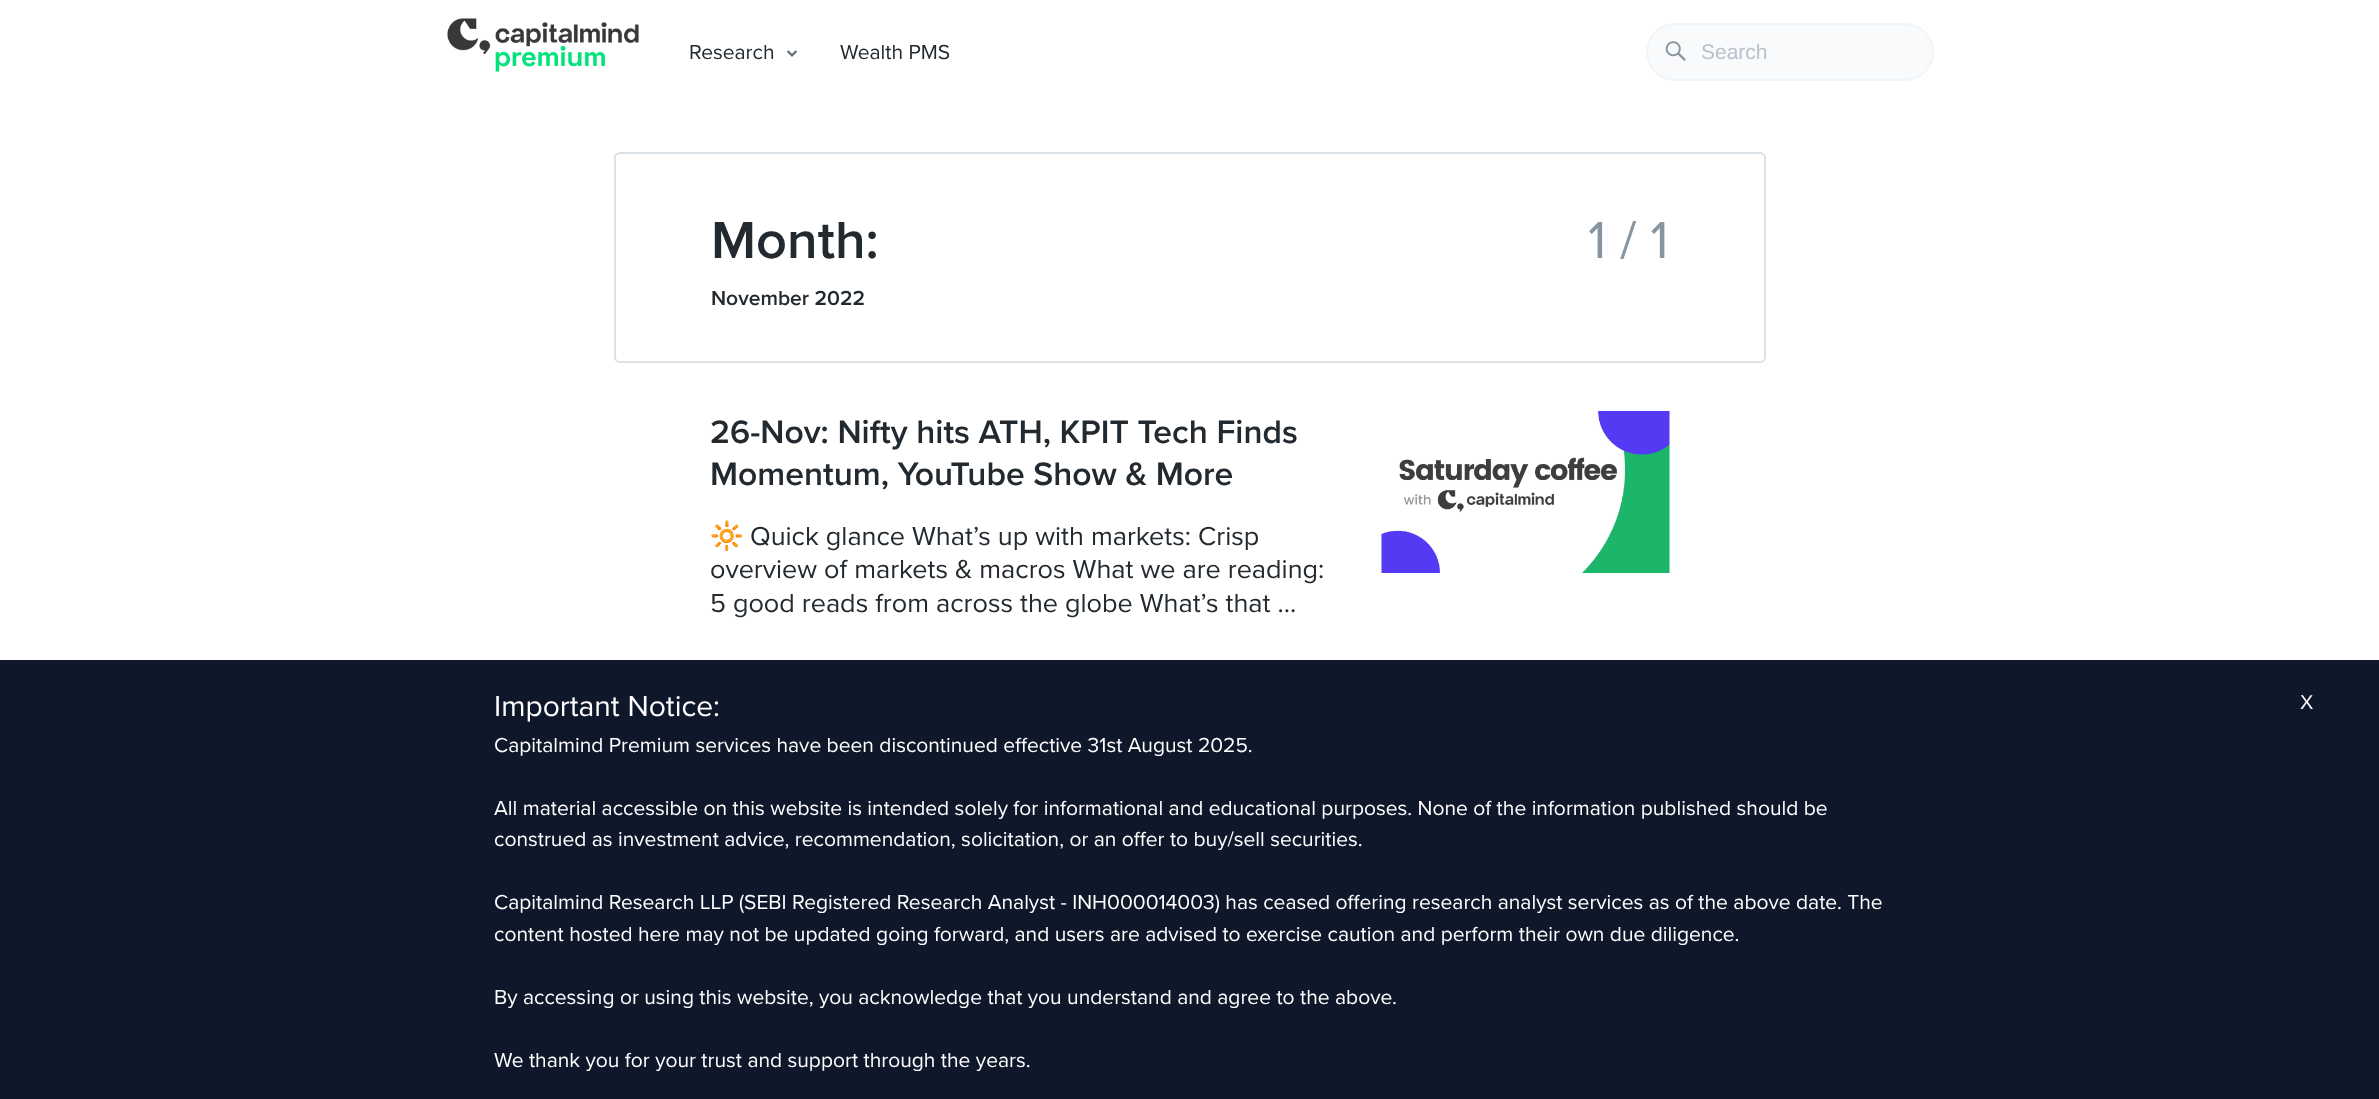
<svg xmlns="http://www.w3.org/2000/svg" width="2379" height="1099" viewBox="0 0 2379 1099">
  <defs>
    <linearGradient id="g1" gradientUnits="userSpaceOnUse" x1="1526" y1="411" x2="1526" y2="573"><stop offset="0" stop-color="#f8f9fa"/><stop offset="1" stop-color="#ffffff"/></linearGradient>
  </defs>
  <rect width="100%" height="100%" fill="#ffffff"/>
  <image x="447" y="18" width="192" height="54" href="img1.png"/>
  <text x="689" y="59" font-family="Proxima Nova" font-size="21" fill="#22292f">Research</text>
  <image x="786" y="50" width="12" height="7" href="img2.png"/>
  <text x="840" y="59" font-family="Proxima Nova" font-size="21" fill="#22292f">Wealth PMS</text>
  <rect x="1647" y="24" width="286" height="56" rx="28" fill="#f8fafc" stroke="#f1f5f8" stroke-width="2"/>
  <image x="1665" y="41" width="21" height="20" href="img3.png"/>
  <text x="1701" y="59" font-family="Liberation Sans" font-size="21" fill="#b8c2cc">Search</text>
  <rect x="615" y="153" width="1150" height="209" rx="5" fill="none" stroke="#dae1e7" stroke-width="2"/>
  <text x="711" y="258" font-family="Proxima Nova" font-size="54" font-weight="600" fill="#22292f">Month:</text>
  <text x="711" y="305" font-family="Proxima Nova" font-size="21" font-weight="600" fill="#22292f">November 2022</text>
  <text x="1588" y="258" font-family="Proxima Nova" font-size="54" fill="#8795a1">1 / 1</text>
  <text x="710" y="443" font-family="Proxima Nova" font-size="33.6" font-weight="600" fill="#22292f">26-Nov: Nifty hits ATH, KPIT Tech Finds</text>
  <text x="710" y="485" font-family="Proxima Nova" font-size="33.6" font-weight="600" fill="#22292f">Momentum, YouTube Show &amp; More</text>
  <text x="710" y="545" font-family="Noto Color Emoji" font-size="27" fill="#22292f">🔆</text>
  <text x="750" y="545" font-family="Proxima Nova" font-size="27" fill="#22292f">Quick glance What’s up with markets: Crisp</text>
  <text x="710" y="578" font-family="Proxima Nova" font-size="27" fill="#22292f">overview of markets &amp; macros What we are reading:</text>
  <text x="710" y="612" font-family="Proxima Nova" font-size="27" fill="#22292f">5 good reads from across the globe What’s that ...</text>
  <rect x="1669" y="411" width="1" height="104" fill="url(#g1)"/>
  <image x="1381" y="411" width="289" height="162" href="img4.png"/>
  <rect x="0" y="660" width="2379" height="439" fill="#0f172a"/>
  <text x="494" y="716" font-family="Proxima Nova" font-size="30" fill="#ffffff">Important Notice:</text>
  <text x="494" y="752" font-family="Proxima Nova" font-size="21" fill="#ffffff">Capitalmind Premium services have been discontinued effective 31st August 2025.</text>
  <text x="494" y="815" font-family="Proxima Nova" font-size="21" fill="#ffffff">All material accessible on this website is intended solely for informational and educational purposes. None of the information published should be</text>
  <text x="494" y="846" font-family="Proxima Nova" font-size="21" fill="#ffffff">construed as investment advice, recommendation, solicitation, or an offer to buy/sell securities.</text>
  <text x="494" y="909" font-family="Proxima Nova" font-size="21" fill="#ffffff">Capitalmind Research LLP (SEBI Registered Research Analyst - INH000014003) has ceased offering research analyst services as of the above date. The</text>
  <text x="494" y="941" font-family="Proxima Nova" font-size="21" fill="#ffffff">content hosted here may not be updated going forward, and users are advised to exercise caution and perform their own due diligence.</text>
  <text x="494" y="1004" font-family="Proxima Nova" font-size="21" fill="#ffffff">By accessing or using this website, you acknowledge that you understand and agree to the above.</text>
  <text x="494" y="1067" font-family="Proxima Nova" font-size="21" fill="#ffffff">We thank you for your trust and support through the years.</text>
  <text x="2300" y="709" font-family="Liberation Sans" font-size="20" fill="#ffffff">X</text>
</svg>
